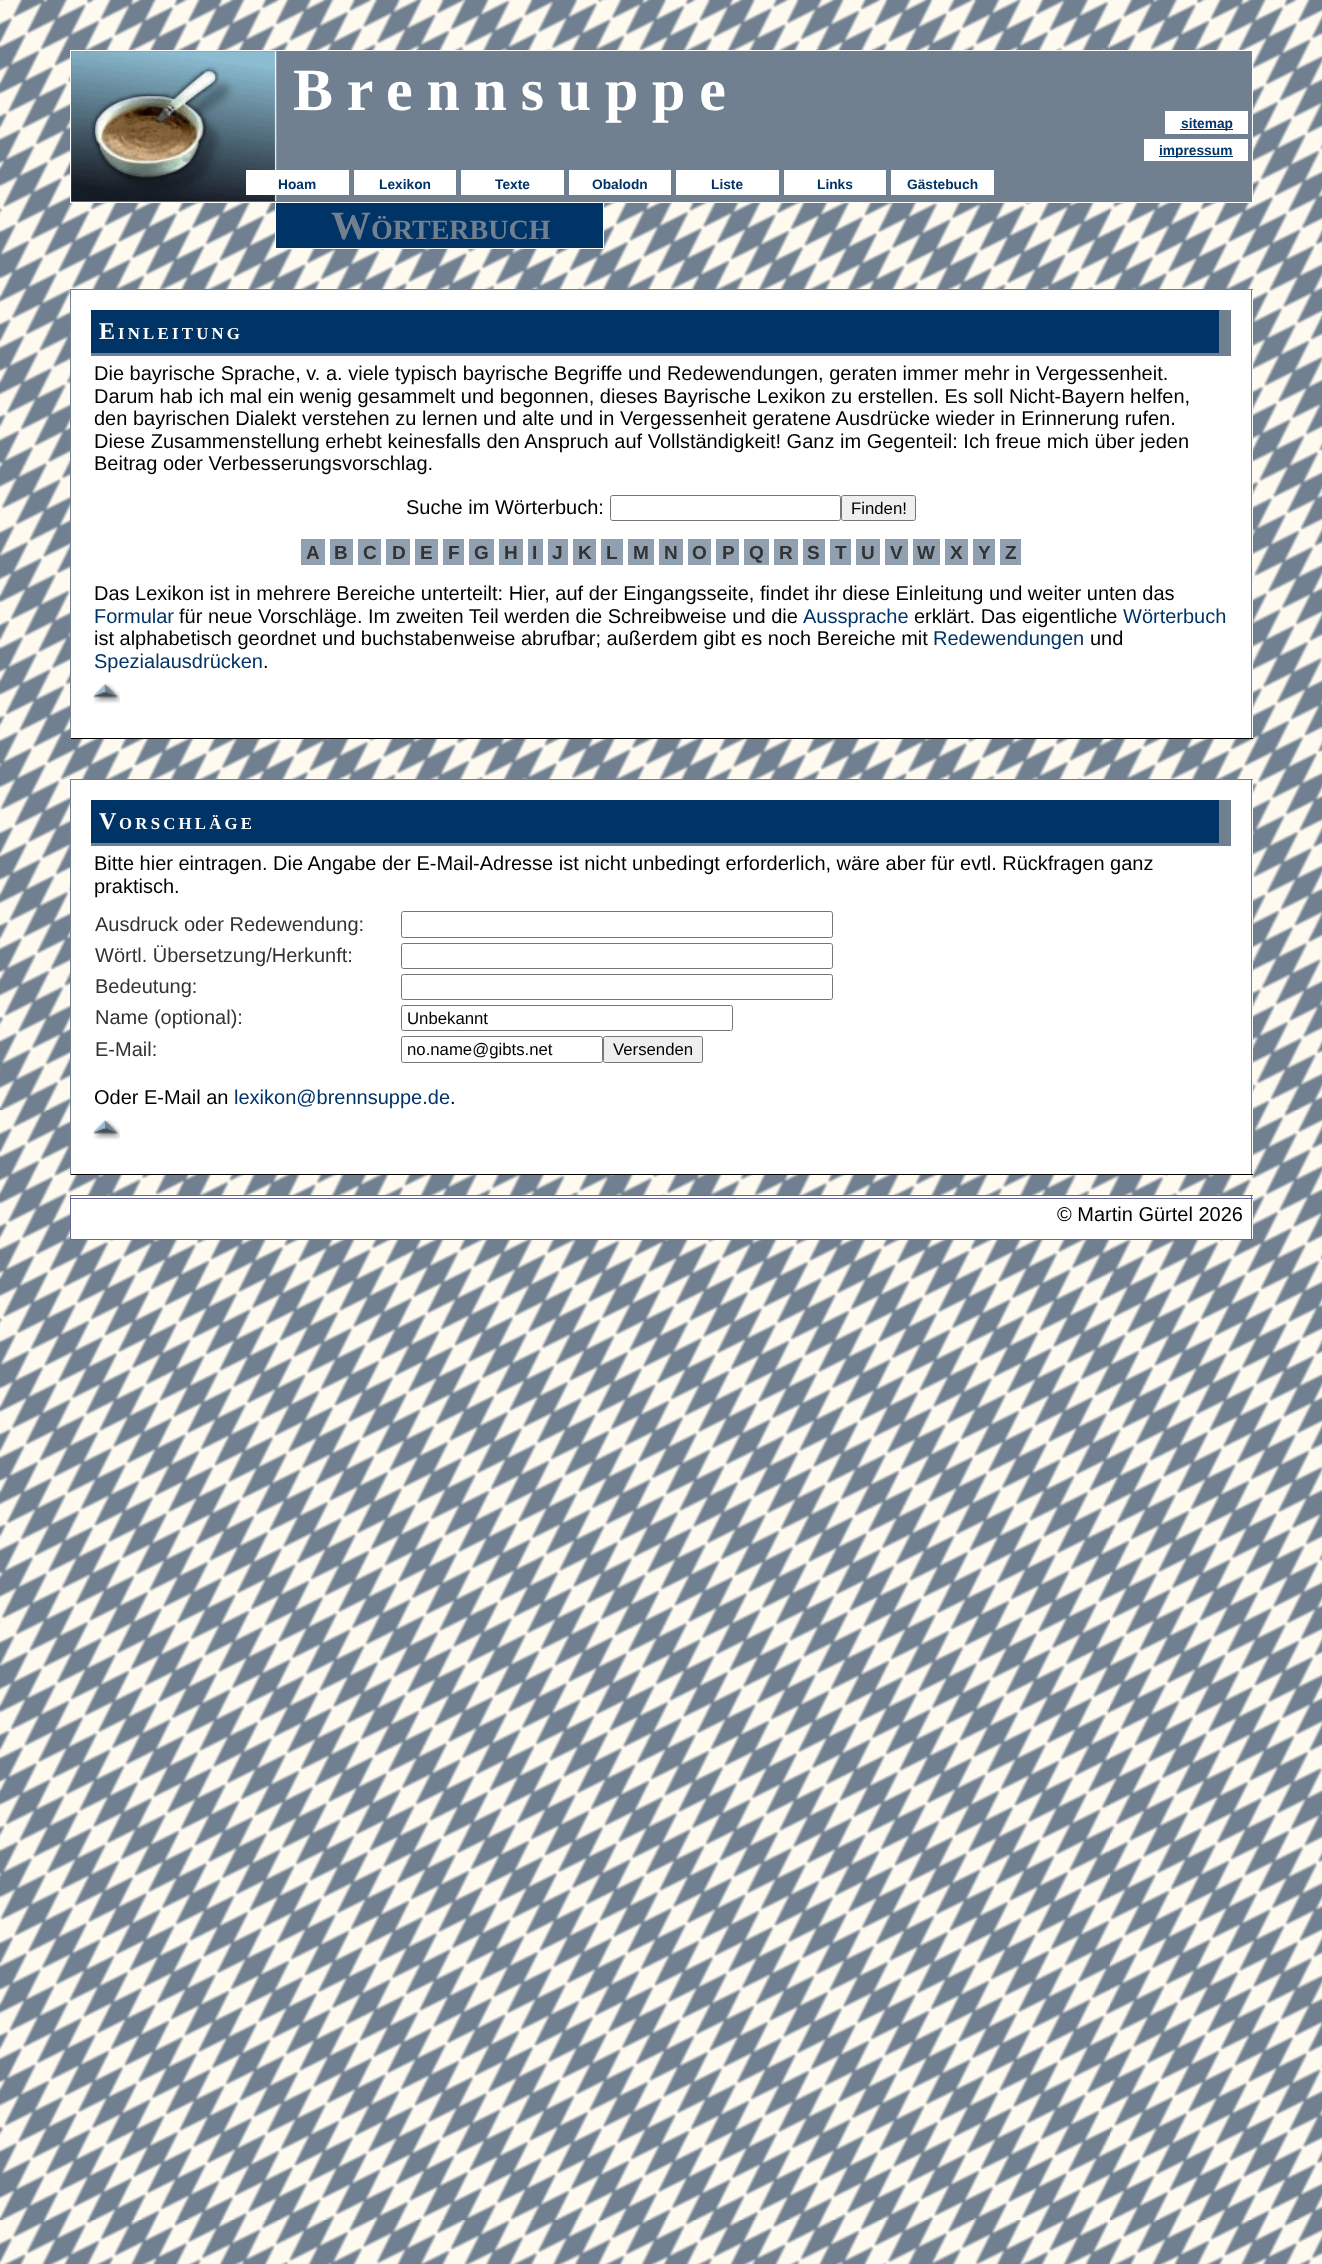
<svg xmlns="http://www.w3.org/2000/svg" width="1322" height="2264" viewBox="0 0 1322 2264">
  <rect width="100%" height="100%" fill="#fffaf0"/>
  <image x="0" y="0" width="1322" height="2264" href="img1.png"/>
  <rect x="276" y="203" width="327" height="45" fill="#003366"/>
  <rect x="275.5" y="201.5" width="328" height="47" fill="none" stroke="#ffffff"/>
  <rect x="71" y="51" width="1181" height="151" fill="#708090"/>
  <image x="71" y="51" width="206" height="151" href="img2.png"/>
  <rect x="70.5" y="50.5" width="1182" height="152" fill="none" stroke="#ffffff"/>
  <text x="293" y="110" font-family="Liberation Serif" font-size="60" font-weight="bold" letter-spacing="13.75" fill="#ffffff">Brennsuppe</text>
  <rect x="1165" y="111" width="83" height="23" fill="#ffffff"/>
  <rect x="1180" y="129" width="53" height="1" fill="#003366"/>
  <text x="1181" y="128" font-family="Liberation Sans" font-size="13.75" font-weight="bold" fill="#003366">sitemap</text>
  <rect x="1144" y="139" width="104" height="22" fill="#ffffff"/>
  <rect x="1159" y="156" width="74" height="1" fill="#003366"/>
  <text x="1159" y="155" font-family="Liberation Sans" font-size="13.75" font-weight="bold" fill="#003366">impressum</text>
  <rect x="246" y="170" width="103" height="25" fill="#ffffff"/>
  <text x="278" y="189" font-family="Liberation Sans" font-size="13.75" font-weight="bold" fill="#003366">Hoam</text>
  <rect x="354" y="170" width="102" height="25" fill="#ffffff"/>
  <text x="379" y="189" font-family="Liberation Sans" font-size="13.75" font-weight="bold" fill="#003366">Lexikon</text>
  <rect x="461" y="170" width="103" height="25" fill="#ffffff"/>
  <text x="495" y="189" font-family="Liberation Sans" font-size="13.75" font-weight="bold" fill="#003366">Texte</text>
  <rect x="569" y="170" width="102" height="25" fill="#ffffff"/>
  <text x="592" y="189" font-family="Liberation Sans" font-size="13.75" font-weight="bold" fill="#003366">Obalodn</text>
  <rect x="676" y="170" width="103" height="25" fill="#ffffff"/>
  <text x="711" y="189" font-family="Liberation Sans" font-size="13.75" font-weight="bold" fill="#003366">Liste</text>
  <rect x="784" y="170" width="102" height="25" fill="#ffffff"/>
  <text x="817" y="189" font-family="Liberation Sans" font-size="13.75" font-weight="bold" fill="#003366">Links</text>
  <rect x="891" y="170" width="103" height="25" fill="#ffffff"/>
  <text x="907" y="189" font-family="Liberation Sans" font-size="13.75" font-weight="bold" fill="#003366">Gästebuch</text>
  <text x="331" y="239" font-family="Liberation Serif" font-size="40" font-weight="bold" fill="#708090">W</text>
  <text x="371" y="239" font-family="Liberation Serif" font-size="28" font-weight="bold" fill="#708090">ÖRTERBUCH</text>
  <rect x="71" y="290" width="1182" height="448" fill="#ffffff"/>
  <rect x="70" y="289" width="1183" height="1" fill="#708090"/>
  <rect x="1251" y="289" width="1" height="450" fill="#708090"/>
  <rect x="70" y="738" width="1183" height="1" fill="#000000"/>
  <rect x="70" y="289" width="1" height="450" fill="#708090"/>
  <rect x="91" y="310" width="1128" height="43" fill="#003366"/>
  <rect x="1219" y="310" width="12" height="43" fill="#708090"/>
  <rect x="91" y="353" width="1140" height="3" fill="#708090"/>
  <text x="99" y="339" font-family="Liberation Serif" font-size="24" font-weight="bold" letter-spacing="3.25" fill="#ffffff">E</text>
  <text x="118" y="339" font-family="Liberation Serif" font-size="16.75" font-weight="bold" letter-spacing="3.25" fill="#ffffff">INLEITUNG</text>
  <text x="94" y="380" font-family="Liberation Sans" font-size="20" fill="#000000">Die bayrische Sprache, v. a. viele typisch bayrische Begriffe und Redewendungen, geraten immer mehr in Vergessenheit.</text>
  <text x="94" y="403" font-family="Liberation Sans" font-size="20" fill="#000000">Darum hab ich mal ein wenig gesammelt und begonnen, dieses Bayrische Lexikon zu erstellen. Es soll Nicht-Bayern helfen,</text>
  <text x="94" y="425" font-family="Liberation Sans" font-size="20" fill="#000000">den bayrischen Dialekt verstehen zu lernen und alte und in Vergessenheit geratene Ausdrücke wieder in Erinnerung rufen.</text>
  <text x="94" y="448" font-family="Liberation Sans" font-size="20" fill="#000000">Diese Zusammenstellung erhebt keinesfalls den Anspruch auf Vollständigkeit! Ganz im Gegenteil: Ich freue mich über jeden</text>
  <text x="94" y="470" font-family="Liberation Sans" font-size="20" fill="#000000">Beitrag oder Verbesserungsvorschlag.</text>
  <text x="406" y="514" font-family="Liberation Sans" font-size="20" fill="#000000">Suche im Wörterbuch:</text>
  <rect x="610.5" y="495.5" width="230" height="25" rx="2" fill="none" stroke="#767676"/>
  <rect x="841.5" y="495.5" width="74" height="25" rx="2" fill="#efefef" stroke="#767676"/>
  <text x="851" y="514" font-family="Liberation Sans" font-size="16.75" fill="#000000">Finden!</text>
  <rect x="301" y="539" width="24" height="26" fill="#90a0b0"/>
  <text x="306" y="559" font-family="Liberation Sans" font-size="19" font-weight="bold" fill="#333333">A</text>
  <rect x="330" y="539" width="23" height="26" fill="#90a0b0"/>
  <text x="334" y="559" font-family="Liberation Sans" font-size="19" font-weight="bold" fill="#333333">B</text>
  <rect x="358" y="539" width="23" height="26" fill="#90a0b0"/>
  <text x="363" y="559" font-family="Liberation Sans" font-size="19" font-weight="bold" fill="#333333">C</text>
  <rect x="386" y="539" width="24" height="26" fill="#90a0b0"/>
  <text x="392" y="559" font-family="Liberation Sans" font-size="19" font-weight="bold" fill="#333333">D</text>
  <rect x="415" y="539" width="23" height="26" fill="#90a0b0"/>
  <text x="420" y="559" font-family="Liberation Sans" font-size="19" font-weight="bold" fill="#333333">E</text>
  <rect x="443" y="539" width="21" height="26" fill="#90a0b0"/>
  <text x="448" y="559" font-family="Liberation Sans" font-size="19" font-weight="bold" fill="#333333">F</text>
  <rect x="469" y="539" width="25" height="26" fill="#90a0b0"/>
  <text x="474" y="559" font-family="Liberation Sans" font-size="19" font-weight="bold" fill="#333333">G</text>
  <rect x="499" y="539" width="24" height="26" fill="#90a0b0"/>
  <text x="504" y="559" font-family="Liberation Sans" font-size="19" font-weight="bold" fill="#333333">H</text>
  <rect x="528" y="539" width="15" height="26" fill="#90a0b0"/>
  <text x="532" y="559" font-family="Liberation Sans" font-size="19" font-weight="bold" fill="#333333">I</text>
  <rect x="548" y="539" width="20" height="26" fill="#90a0b0"/>
  <text x="552" y="559" font-family="Liberation Sans" font-size="19" font-weight="bold" fill="#333333">J</text>
  <rect x="573" y="539" width="23" height="26" fill="#90a0b0"/>
  <text x="578" y="559" font-family="Liberation Sans" font-size="19" font-weight="bold" fill="#333333">K</text>
  <rect x="601" y="539" width="22" height="26" fill="#90a0b0"/>
  <text x="606" y="559" font-family="Liberation Sans" font-size="19" font-weight="bold" fill="#333333">L</text>
  <rect x="628" y="539" width="26" height="26" fill="#90a0b0"/>
  <text x="633" y="559" font-family="Liberation Sans" font-size="19" font-weight="bold" fill="#333333">M</text>
  <rect x="659" y="539" width="24" height="26" fill="#90a0b0"/>
  <text x="664" y="559" font-family="Liberation Sans" font-size="19" font-weight="bold" fill="#333333">N</text>
  <rect x="688" y="539" width="23" height="26" fill="#90a0b0"/>
  <text x="692" y="559" font-family="Liberation Sans" font-size="19" font-weight="bold" fill="#333333">O</text>
  <rect x="716" y="539" width="23" height="26" fill="#90a0b0"/>
  <text x="722" y="559" font-family="Liberation Sans" font-size="19" font-weight="bold" fill="#333333">P</text>
  <rect x="744" y="539" width="25" height="26" fill="#90a0b0"/>
  <text x="749" y="559" font-family="Liberation Sans" font-size="19" font-weight="bold" fill="#333333">Q</text>
  <rect x="774" y="539" width="24" height="26" fill="#90a0b0"/>
  <text x="779" y="559" font-family="Liberation Sans" font-size="19" font-weight="bold" fill="#333333">R</text>
  <rect x="803" y="539" width="22" height="26" fill="#90a0b0"/>
  <text x="807" y="559" font-family="Liberation Sans" font-size="19" font-weight="bold" fill="#333333">S</text>
  <rect x="830" y="539" width="21" height="26" fill="#90a0b0"/>
  <text x="835" y="559" font-family="Liberation Sans" font-size="19" font-weight="bold" fill="#333333">T</text>
  <rect x="856" y="539" width="24" height="26" fill="#90a0b0"/>
  <text x="861" y="559" font-family="Liberation Sans" font-size="19" font-weight="bold" fill="#333333">U</text>
  <rect x="885" y="539" width="23" height="26" fill="#90a0b0"/>
  <text x="890" y="559" font-family="Liberation Sans" font-size="19" font-weight="bold" fill="#333333">V</text>
  <rect x="913" y="539" width="27" height="26" fill="#90a0b0"/>
  <text x="917" y="559" font-family="Liberation Sans" font-size="19" font-weight="bold" fill="#333333">W</text>
  <rect x="945" y="539" width="23" height="26" fill="#90a0b0"/>
  <text x="950" y="559" font-family="Liberation Sans" font-size="19" font-weight="bold" fill="#333333">X</text>
  <rect x="973" y="539" width="22" height="26" fill="#90a0b0"/>
  <text x="978" y="559" font-family="Liberation Sans" font-size="19" font-weight="bold" fill="#333333">Y</text>
  <rect x="1000" y="539" width="21" height="26" fill="#90a0b0"/>
  <text x="1005" y="559" font-family="Liberation Sans" font-size="19" font-weight="bold" fill="#333333">Z</text>
  <text x="94" y="600" font-family="Liberation Sans" font-size="20" fill="#000000">Das Lexikon ist in mehrere Bereiche unterteilt: Hier, auf der Eingangsseite, findet ihr diese Einleitung und weiter unten das</text>
  <text x="94" y="623" font-family="Liberation Sans" font-size="20" fill="#003366">Formular</text>
  <text x="179" y="623" font-family="Liberation Sans" font-size="20" fill="#000000">für neue Vorschläge. Im zweiten Teil werden die Schreibweise und die</text>
  <text x="803" y="623" font-family="Liberation Sans" font-size="20" fill="#003366">Aussprache</text>
  <text x="914" y="623" font-family="Liberation Sans" font-size="20" fill="#000000">erklärt. Das eigentliche</text>
  <text x="1123" y="623" font-family="Liberation Sans" font-size="20" fill="#003366">Wörterbuch</text>
  <text x="94" y="645" font-family="Liberation Sans" font-size="20" fill="#000000">ist alphabetisch geordnet und buchstabenweise abrufbar; außerdem gibt es noch Bereiche mit</text>
  <text x="933" y="645" font-family="Liberation Sans" font-size="20" fill="#003366">Redewendungen</text>
  <text x="1090" y="645" font-family="Liberation Sans" font-size="20" fill="#000000">und</text>
  <text x="94" y="668" font-family="Liberation Sans" font-size="20" fill="#003366">Spezialausdrücken</text>
  <text x="263" y="668" font-family="Liberation Sans" font-size="20" fill="#000000">.</text>
  <image x="93" y="683" width="27" height="21" href="img3.png"/>
  <rect x="71" y="780" width="1182" height="394" fill="#ffffff"/>
  <rect x="70" y="779" width="1183" height="1" fill="#708090"/>
  <rect x="1251" y="779" width="1" height="396" fill="#708090"/>
  <rect x="70" y="1174" width="1183" height="1" fill="#000000"/>
  <rect x="70" y="779" width="1" height="396" fill="#708090"/>
  <rect x="91" y="800" width="1128" height="43" fill="#003366"/>
  <rect x="1219" y="800" width="12" height="43" fill="#708090"/>
  <rect x="91" y="843" width="1140" height="3" fill="#708090"/>
  <text x="99" y="829" font-family="Liberation Serif" font-size="24" font-weight="bold" letter-spacing="3.25" fill="#ffffff">V</text>
  <text x="119" y="829" font-family="Liberation Serif" font-size="16.75" font-weight="bold" letter-spacing="3.25" fill="#ffffff">ORSCHLÄGE</text>
  <text x="94" y="870" font-family="Liberation Sans" font-size="20" fill="#000000">Bitte hier eintragen. Die Angabe der E-Mail-Adresse ist nicht unbedingt erforderlich, wäre aber für evtl. Rückfragen ganz</text>
  <text x="94" y="893" font-family="Liberation Sans" font-size="20" fill="#000000">praktisch.</text>
  <text x="95" y="931" font-family="Liberation Sans" font-size="20" fill="#333333">Ausdruck oder Redewendung:</text>
  <rect x="401.5" y="911.5" width="431" height="26" rx="2" fill="none" stroke="#767676"/>
  <text x="95" y="962" font-family="Liberation Sans" font-size="20" fill="#333333">Wörtl. Übersetzung/Herkunft:</text>
  <rect x="401.5" y="943.5" width="431" height="25" rx="2" fill="none" stroke="#767676"/>
  <text x="95" y="993" font-family="Liberation Sans" font-size="20" fill="#333333">Bedeutung:</text>
  <rect x="401.5" y="974.5" width="431" height="25" rx="2" fill="none" stroke="#767676"/>
  <text x="95" y="1024" font-family="Liberation Sans" font-size="20" fill="#333333">Name (optional):</text>
  <rect x="401.5" y="1005.5" width="331" height="25" rx="2" fill="none" stroke="#767676"/>
  <text x="407" y="1024" font-family="Liberation Sans" font-size="16.75" fill="#000000">Unbekannt</text>
  <text x="95" y="1056" font-family="Liberation Sans" font-size="20" fill="#333333">E-Mail:</text>
  <rect x="401.5" y="1036.5" width="201" height="26" rx="2" fill="none" stroke="#767676"/>
  <text x="407" y="1055" font-family="Liberation Sans" font-size="16.75" fill="#000000">no.name@gibts.net</text>
  <rect x="603.5" y="1036.5" width="99" height="26" rx="2" fill="#efefef" stroke="#767676"/>
  <text x="613" y="1055" font-family="Liberation Sans" font-size="16.75" fill="#000000">Versenden</text>
  <text x="94" y="1104" font-family="Liberation Sans" font-size="20" fill="#000000">Oder E-Mail an</text>
  <text x="234" y="1104" font-family="Liberation Sans" font-size="20" fill="#003366">lexikon@brennsuppe.de</text>
  <text x="450" y="1104" font-family="Liberation Sans" font-size="20" fill="#000000">.</text>
  <image x="93" y="1120" width="27" height="20" href="img4.png"/>
  <rect x="71" y="1196" width="1182" height="43" fill="#ffffff"/>
  <rect x="70" y="1195" width="1183" height="1" fill="#666699"/>
  <rect x="70" y="1198" width="1183" height="1" fill="#666699"/>
  <rect x="1251" y="1195" width="1" height="45" fill="#666699"/>
  <rect x="70" y="1239" width="1183" height="1" fill="#666699"/>
  <rect x="70" y="1195" width="1" height="45" fill="#666699"/>
  <text x="1057" y="1221" font-family="Liberation Sans" font-size="20" fill="#000000">© Martin Gürtel 2026</text>
</svg>
